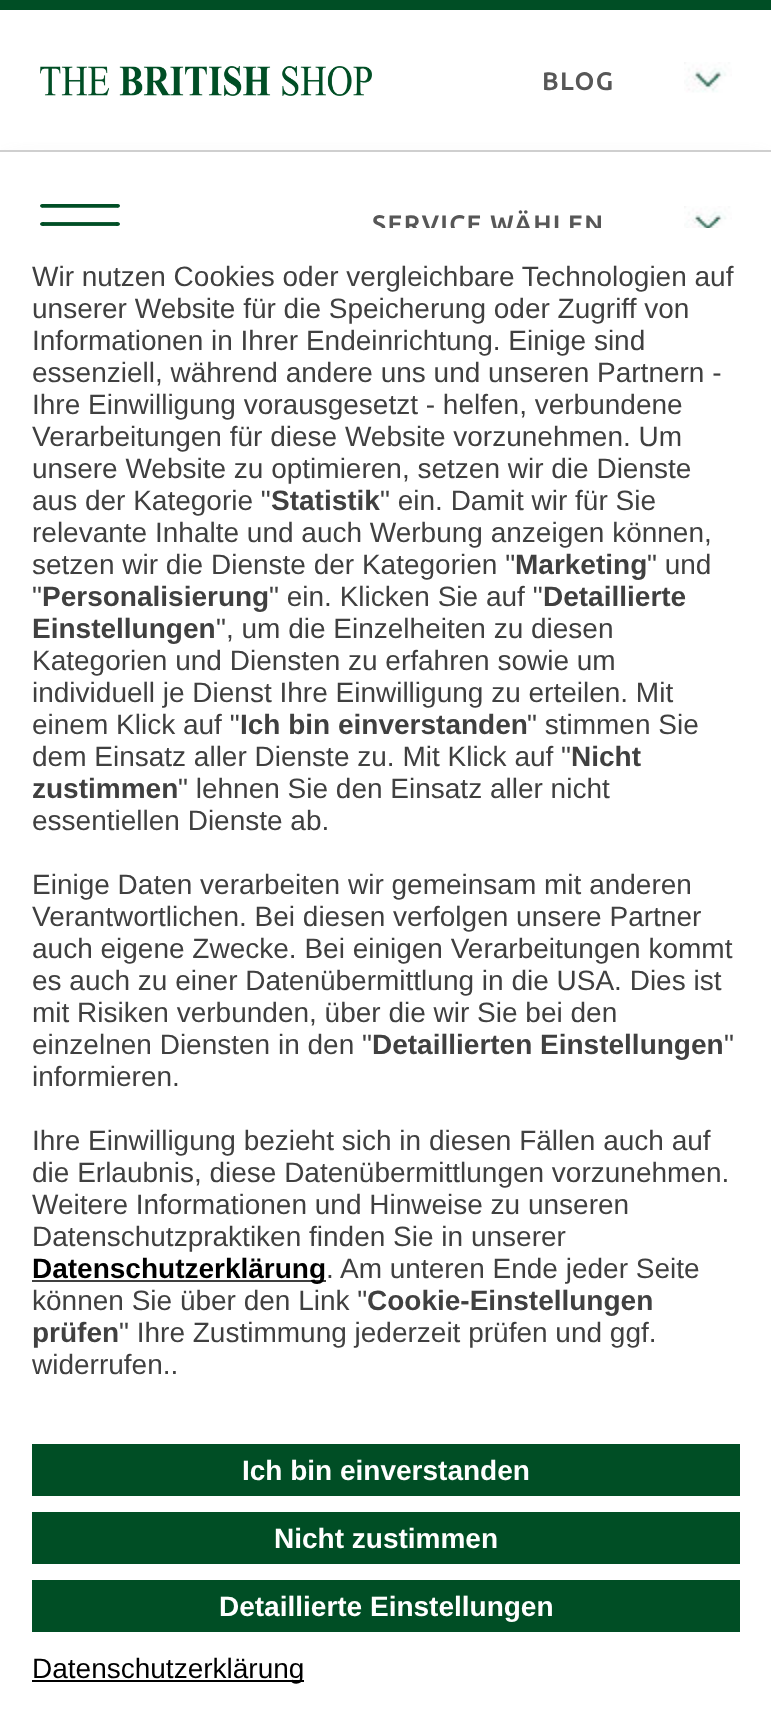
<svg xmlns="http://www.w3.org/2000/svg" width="771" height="1722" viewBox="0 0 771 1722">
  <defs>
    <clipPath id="clip1"><rect x="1" y="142" width="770" height="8"/></clipPath>
    <filter id="blur1" x="-50%" y="-200%" width="200%" height="500%"><feGaussianBlur stdDeviation="20"/></filter>
  </defs>
  <rect width="100%" height="100%" fill="#ffffff"/>
  <rect x="0" y="0" width="771" height="10" fill="#004e25"/>
  <image x="40" y="66" width="332" height="30" href="img1.png"/>
  <image x="684" y="62" width="48" height="31" href="img2.png"/>
  <text x="542" y="90" font-family="Ubuntu" font-size="25.25" font-weight="bold" letter-spacing="1.25" fill="#575757">BLOG</text>
  <g clip-path="url(#clip1)">
    <rect x="0" y="170" width="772" height="138" fill="#cccccc" fill-opacity="0.25" filter="url(#blur1)"/>
  </g>
  <rect x="0" y="150" width="771" height="2" fill="#cfcfcf"/>
  <image x="40" y="204" width="80" height="22" href="img3.png"/>
  <image x="684" y="206" width="48" height="22" href="img4.png"/>
  <text x="372" y="233" font-family="Ubuntu" font-size="25.25" font-weight="bold" letter-spacing="1.25" fill="#575757">SERVICE WÄHLEN</text>
  <rect x="0" y="228" width="771" height="97" fill="#ffffff"/>
  <text x="32" y="286" font-family="Liberation Sans" font-size="28" fill="#404040">Wir nutzen Cookies oder vergleichbare Technologien auf</text>
  <text x="32" y="318" font-family="Liberation Sans" font-size="28" fill="#404040">unserer Website für die Speicherung oder Zugriff von</text>
  <text x="32" y="350" font-family="Liberation Sans" font-size="28" fill="#404040">Informationen in Ihrer Endeinrichtung. Einige sind</text>
  <text x="32" y="382" font-family="Liberation Sans" font-size="28" fill="#404040">essenziell, während andere uns und unseren Partnern -</text>
  <text x="32" y="414" font-family="Liberation Sans" font-size="28" fill="#404040">Ihre Einwilligung vorausgesetzt - helfen, verbundene</text>
  <text x="32" y="446" font-family="Liberation Sans" font-size="28" fill="#404040">Verarbeitungen für diese Website vorzunehmen. Um</text>
  <text x="32" y="478" font-family="Liberation Sans" font-size="28" fill="#404040">unsere Website zu optimieren, setzen wir die Dienste</text>
  <text x="32" y="510" font-family="Liberation Sans" font-size="28" fill="#404040">aus der Kategorie "</text>
  <text x="271" y="510" font-family="Liberation Sans" font-size="28" font-weight="bold" fill="#404040">Statistik</text>
  <text x="380" y="510" font-family="Liberation Sans" font-size="28" fill="#404040">" ein. Damit wir für Sie</text>
  <text x="32" y="542" font-family="Liberation Sans" font-size="28" fill="#404040">relevante Inhalte und auch Werbung anzeigen können,</text>
  <text x="32" y="574" font-family="Liberation Sans" font-size="28" fill="#404040">setzen wir die Dienste der Kategorien "</text>
  <text x="515" y="574" font-family="Liberation Sans" font-size="28" font-weight="bold" fill="#404040">Marketing</text>
  <text x="647" y="574" font-family="Liberation Sans" font-size="28" fill="#404040">" und</text>
  <text x="32" y="606" font-family="Liberation Sans" font-size="28" fill="#404040">"</text>
  <text x="42" y="606" font-family="Liberation Sans" font-size="28" font-weight="bold" fill="#404040">Personalisierung</text>
  <text x="269" y="606" font-family="Liberation Sans" font-size="28" fill="#404040">" ein. Klicken Sie auf "</text>
  <text x="543" y="606" font-family="Liberation Sans" font-size="28" font-weight="bold" fill="#404040">Detaillierte</text>
  <text x="32" y="638" font-family="Liberation Sans" font-size="28" font-weight="bold" fill="#404040">Einstellungen</text>
  <text x="216" y="638" font-family="Liberation Sans" font-size="28" fill="#404040">", um die Einzelheiten zu diesen</text>
  <text x="32" y="670" font-family="Liberation Sans" font-size="28" fill="#404040">Kategorien und Diensten zu erfahren sowie um</text>
  <text x="32" y="702" font-family="Liberation Sans" font-size="28" fill="#404040">individuell je Dienst Ihre Einwilligung zu erteilen. Mit</text>
  <text x="32" y="734" font-family="Liberation Sans" font-size="28" fill="#404040">einem Klick auf "</text>
  <text x="240" y="734" font-family="Liberation Sans" font-size="28" font-weight="bold" fill="#404040">Ich bin einverstanden</text>
  <text x="527" y="734" font-family="Liberation Sans" font-size="28" fill="#404040">" stimmen Sie</text>
  <text x="32" y="766" font-family="Liberation Sans" font-size="28" fill="#404040">dem Einsatz aller Dienste zu. Mit Klick auf "</text>
  <text x="571" y="766" font-family="Liberation Sans" font-size="28" font-weight="bold" fill="#404040">Nicht</text>
  <text x="32" y="798" font-family="Liberation Sans" font-size="28" font-weight="bold" fill="#404040">zustimmen</text>
  <text x="178" y="798" font-family="Liberation Sans" font-size="28" fill="#404040">" lehnen Sie den Einsatz aller nicht</text>
  <text x="32" y="830" font-family="Liberation Sans" font-size="28" fill="#404040">essentiellen Dienste ab.</text>
  <text x="32" y="894" font-family="Liberation Sans" font-size="28" fill="#404040">Einige Daten verarbeiten wir gemeinsam mit anderen</text>
  <text x="32" y="926" font-family="Liberation Sans" font-size="28" fill="#404040">Verantwortlichen. Bei diesen verfolgen unsere Partner</text>
  <text x="32" y="958" font-family="Liberation Sans" font-size="28" fill="#404040">auch eigene Zwecke. Bei einigen Verarbeitungen kommt</text>
  <text x="32" y="990" font-family="Liberation Sans" font-size="28" fill="#404040">es auch zu einer Datenübermittlung in die USA. Dies ist</text>
  <text x="32" y="1022" font-family="Liberation Sans" font-size="28" fill="#404040">mit Risiken verbunden, über die wir Sie bei den</text>
  <text x="32" y="1054" font-family="Liberation Sans" font-size="28" fill="#404040">einzelnen Diensten in den "</text>
  <text x="372" y="1054" font-family="Liberation Sans" font-size="28" font-weight="bold" fill="#404040">Detaillierten Einstellungen</text>
  <text x="724" y="1054" font-family="Liberation Sans" font-size="28" fill="#404040">"</text>
  <text x="32" y="1086" font-family="Liberation Sans" font-size="28" fill="#404040">informieren.</text>
  <text x="32" y="1150" font-family="Liberation Sans" font-size="28" fill="#404040">Ihre Einwilligung bezieht sich in diesen Fällen auch auf</text>
  <text x="32" y="1182" font-family="Liberation Sans" font-size="28" fill="#404040">die Erlaubnis, diese Datenübermittlungen vorzunehmen.</text>
  <text x="32" y="1214" font-family="Liberation Sans" font-size="28" fill="#404040">Weitere Informationen und Hinweise zu unseren</text>
  <text x="32" y="1246" font-family="Liberation Sans" font-size="28" fill="#404040">Datenschutzpraktiken finden Sie in unserer</text>
  <rect x="32" y="1280" width="294" height="2" fill="#404040"/>
  <text x="32" y="1278" font-family="Liberation Sans" font-size="28" font-weight="bold" fill="#000000">Datenschutzerklärung</text>
  <text x="326" y="1278" font-family="Liberation Sans" font-size="28" fill="#404040">. Am unteren Ende jeder Seite</text>
  <text x="32" y="1310" font-family="Liberation Sans" font-size="28" fill="#404040">können Sie über den Link "</text>
  <text x="367" y="1310" font-family="Liberation Sans" font-size="28" font-weight="bold" fill="#404040">Cookie-Einstellungen</text>
  <text x="32" y="1342" font-family="Liberation Sans" font-size="28" font-weight="bold" fill="#404040">prüfen</text>
  <text x="119" y="1342" font-family="Liberation Sans" font-size="28" fill="#404040">" Ihre Zustimmung jederzeit prüfen und ggf.</text>
  <text x="32" y="1374" font-family="Liberation Sans" font-size="28" fill="#404040">widerrufen..</text>
  <rect x="32" y="1444" width="708" height="52" fill="#004e25"/>
  <text x="242" y="1480" font-family="Liberation Sans" font-size="28" font-weight="bold" fill="#ffffff">Ich bin einverstanden</text>
  <rect x="32" y="1512" width="708" height="52" fill="#004e25"/>
  <text x="274" y="1548" font-family="Liberation Sans" font-size="28" font-weight="bold" fill="#ffffff">Nicht zustimmen</text>
  <rect x="32" y="1580" width="708" height="52" fill="#004e25"/>
  <text x="219" y="1616" font-family="Liberation Sans" font-size="28" font-weight="bold" fill="#ffffff">Detaillierte Einstellungen</text>
  <rect x="32" y="1680" width="272" height="2" fill="#000000"/>
  <text x="32" y="1678" font-family="Liberation Sans" font-size="28" fill="#000000">Datenschutzerklärung</text>
</svg>
